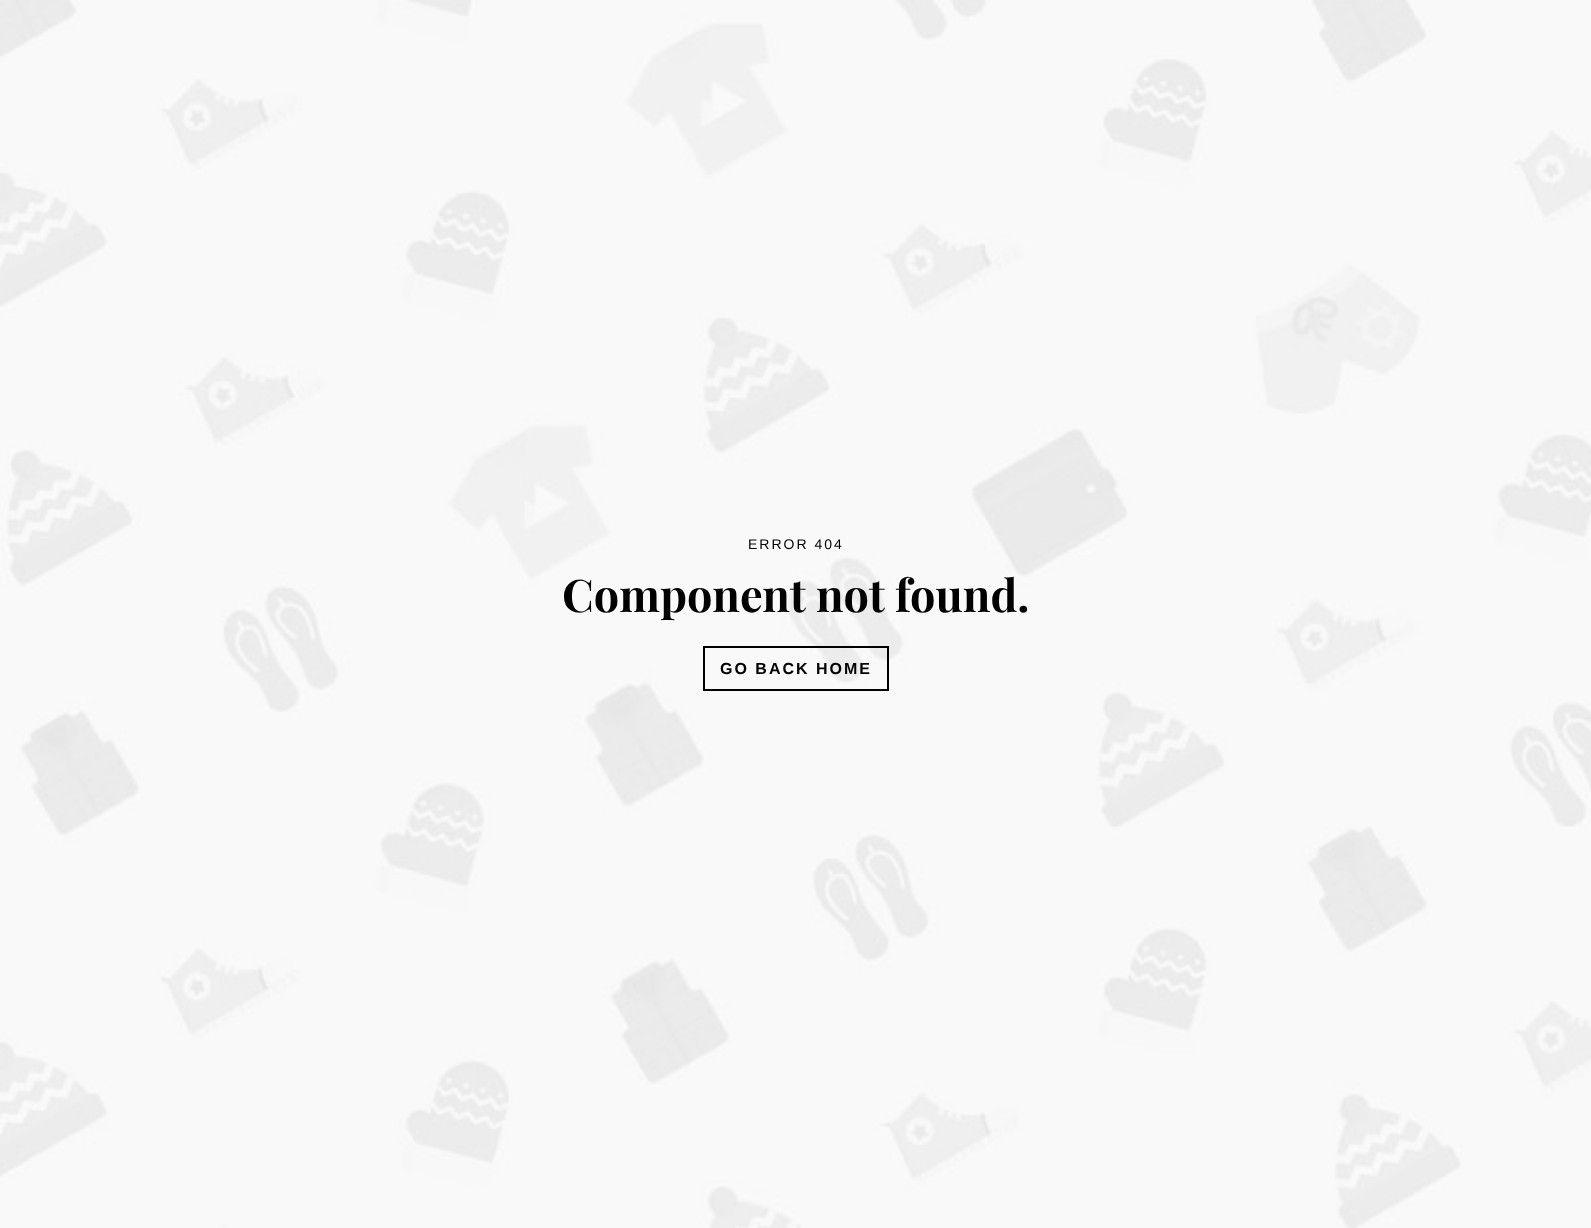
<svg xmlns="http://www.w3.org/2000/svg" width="1591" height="1228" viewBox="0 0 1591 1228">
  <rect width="100%" height="100%" fill="#ffffff"/>
  <image x="0" y="0" width="1591" height="1228" href="img1.png"/>
  <text x="748" y="549" font-family="Liberation Sans" font-size="14" letter-spacing="2" fill="#000000">ERROR 404</text>
  <text x="562" y="612" font-family="Playfair Display" font-size="45" font-weight="bold" fill="#000000">Component not found.</text>
  <rect x="704" y="647" width="184" height="43" fill="none" stroke="#000000" stroke-width="2"/>
  <text x="720" y="674" font-family="Liberation Sans" font-size="16" font-weight="bold" letter-spacing="2" fill="#000000">GO BACK HOME</text>
</svg>
